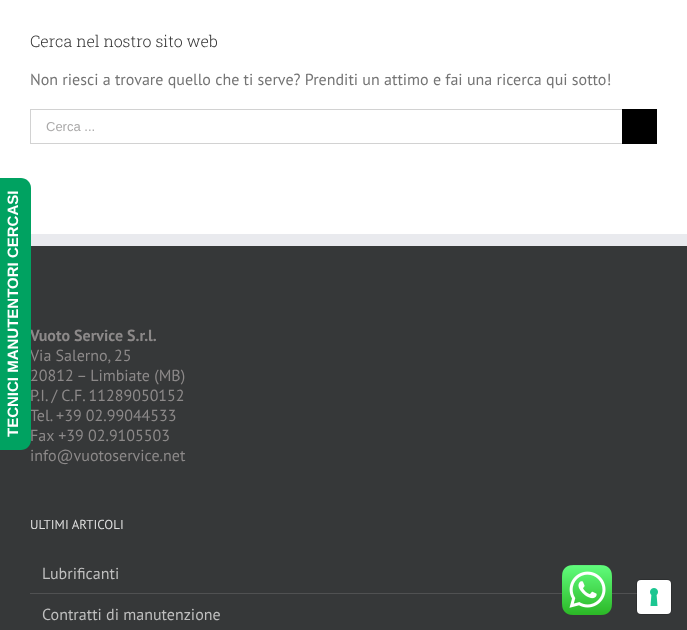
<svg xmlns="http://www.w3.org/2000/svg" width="687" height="630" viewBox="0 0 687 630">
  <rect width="100%" height="100%" fill="#ffffff"/>
  <rect x="0" y="246" width="687" height="384" fill="#363839"/>
  <text x="30" y="341" font-family="PT Sans" font-size="16" font-weight="bold" fill="#8c8989">Vuoto Service S.r.l.</text>
  <text x="30" y="361" font-family="PT Sans" font-size="16" fill="#8c8989">Via Salerno, 25</text>
  <text x="30" y="381" font-family="PT Sans" font-size="16" fill="#8c8989">20812 – Limbiate (MB)</text>
  <text x="30" y="421" font-family="PT Sans" font-size="16" fill="#8c8989">Tel. +39 02.99044533</text>
  <path d="M-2 450V178H21C26 178 31 182 31 188V440C31 446 26 450 21 450Z" fill="#00a261"/>
  <text x="18" y="437" transform="rotate(-90 18 437)" font-family="Liberation Sans" font-size="15" font-weight="bold" fill="#ffffff">TECNICI MANUTENTORI CERCASI</text>
  <rect x="30" y="593" width="607" height="1" fill="#505152"/>
  <image x="562" y="565" width="50" height="50" href="img1.png"/>
  <text x="30" y="47" font-family="Roboto Slab" font-size="16" font-weight="300" fill="#333333">Cerca nel nostro sito web</text>
  <text x="30" y="85" font-family="PT Sans" font-size="16" fill="#747474">Non riesci a trovare quello che ti serve? Prenditi un attimo e fai una ricerca qui sotto!</text>
  <rect x="30" y="109" width="592" height="1" fill="#d2d2d2"/>
  <rect x="30" y="143" width="592" height="1" fill="#d2d2d2"/>
  <rect x="30" y="109" width="1" height="35" fill="#d2d2d2"/>
  <text x="46" y="131" font-family="Liberation Sans" font-size="13" fill="#aaa9a9">Cerca ...</text>
  <rect x="622" y="109" width="35" height="35" fill="#000000"/>
  <rect x="31" y="234" width="656" height="12" fill="#e9eaee"/>
  <text x="30" y="401" font-family="PT Sans" font-size="16" fill="#8c8989">P.I. / C.F. 11289050152</text>
  <text x="30" y="441" font-family="PT Sans" font-size="16" fill="#8c8989">Fax +39 02.9105503</text>
  <text x="30" y="461" font-family="PT Sans" font-size="16" fill="#8c8989">info@vuotoservice.net</text>
  <text x="30" y="529" font-family="PT Sans" font-size="13" fill="#dddddd">ULTIMI ARTICOLI</text>
  <text x="42" y="579" font-family="PT Sans" font-size="16" fill="#bfbfbf">Lubrificanti</text>
  <text x="42" y="620" font-family="PT Sans" font-size="16" fill="#bfbfbf">Contratti di manutenzione</text>
  <rect x="636.5" y="579.5" width="35" height="35" rx="4.5" fill="none" stroke="#000000" stroke-opacity="0.15"/>
  <rect x="637" y="580" width="34" height="34" rx="4" fill="#ffffff"/>
  <image x="650" y="588" width="8" height="18" href="img2.png"/>
</svg>
